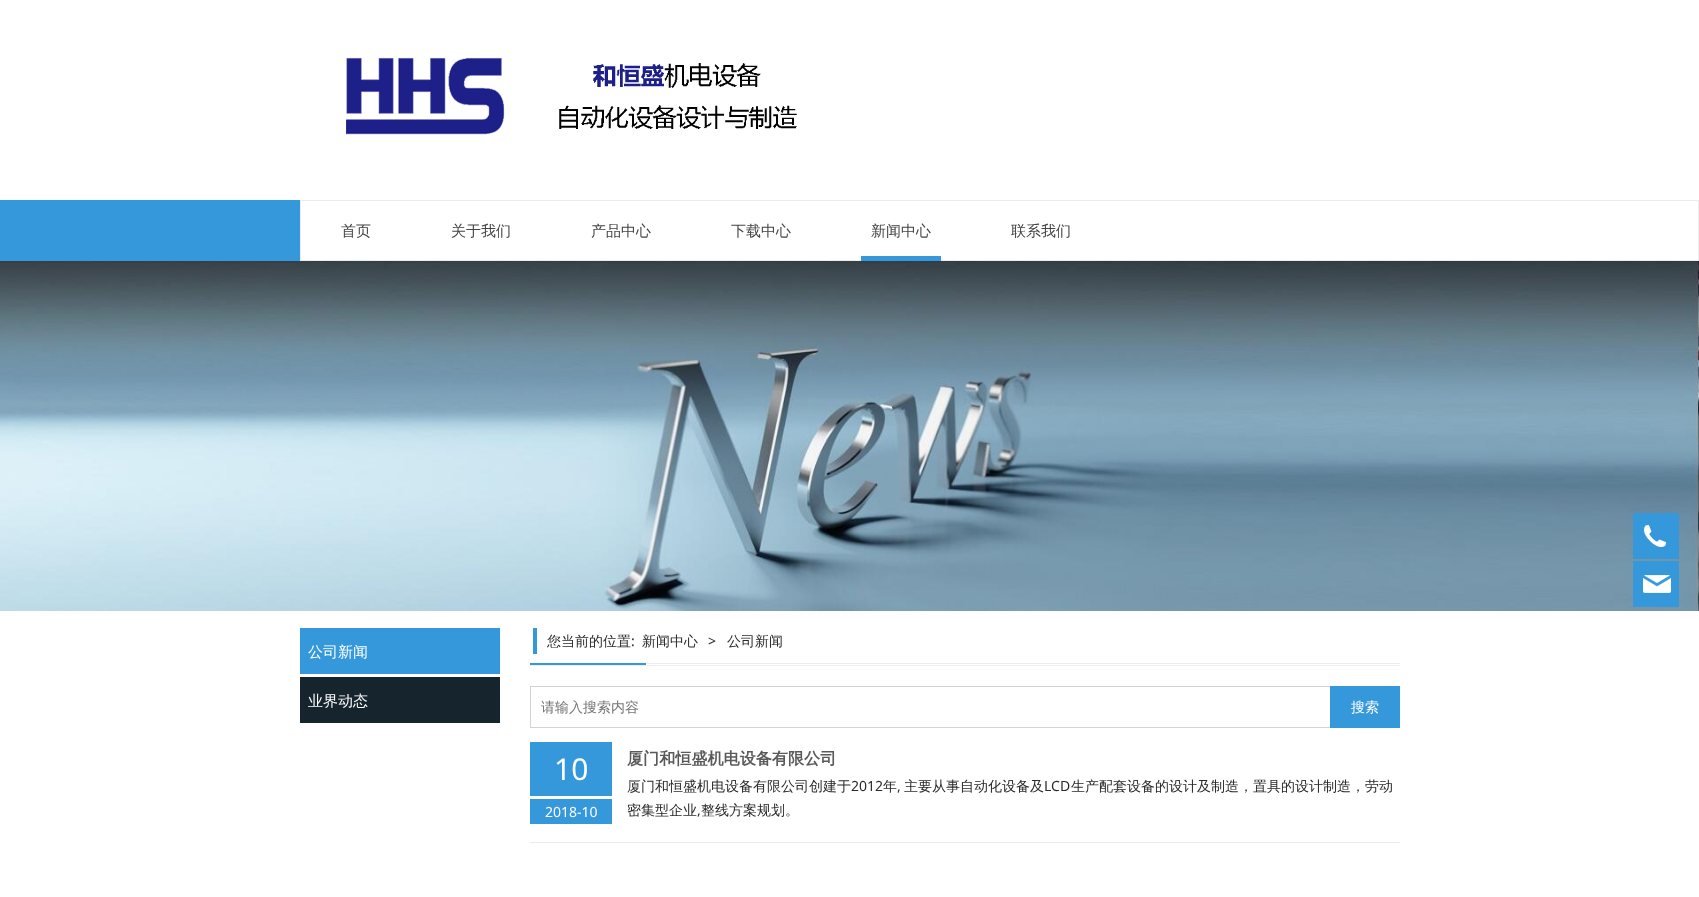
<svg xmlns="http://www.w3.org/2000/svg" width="1699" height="897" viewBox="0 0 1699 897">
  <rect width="100%" height="100%" fill="#ffffff"/>
  <image x="346" y="57" width="451" height="78" href="img1.png"/>
  <rect x="0" y="200" width="300" height="61" fill="#3498db"/>
  <rect x="300.5" y="200.5" width="1398" height="60" fill="none" stroke="#ececec"/>
  <text x="341" y="236" font-family="WenQuanYi Zen Hei" font-size="15" font-weight="500" fill="#444444">首页</text>
  <text x="451" y="236" font-family="WenQuanYi Zen Hei" font-size="15" font-weight="500" fill="#444444">关于我们</text>
  <text x="591" y="236" font-family="WenQuanYi Zen Hei" font-size="15" font-weight="500" fill="#444444">产品中心</text>
  <text x="731" y="236" font-family="WenQuanYi Zen Hei" font-size="15" font-weight="500" fill="#444444">下载中心</text>
  <text x="871" y="236" font-family="WenQuanYi Zen Hei" font-size="15" font-weight="500" fill="#444444">新闻中心</text>
  <rect x="861" y="256" width="80" height="5" fill="#3498db"/>
  <text x="1011" y="236" font-family="WenQuanYi Zen Hei" font-size="15" font-weight="500" fill="#444444">联系我们</text>
  <image x="0" y="261" width="1699" height="350" href="img2.png"/>
  <rect x="1633" y="513" width="46" height="46" fill="#3498db"/>
  <image x="1644" y="525" width="22" height="22" href="img3.png"/>
  <rect x="1633" y="561" width="46" height="46" fill="#3498db"/>
  <image x="1643" y="575" width="28" height="18" href="img4.png"/>
  <rect x="300" y="628" width="200" height="46" fill="#3498db"/>
  <text x="308" y="657" font-family="WenQuanYi Zen Hei" font-size="15" font-weight="500" fill="#ffffff">公司新闻</text>
  <rect x="300" y="677" width="200" height="46" fill="#16242e"/>
  <text x="308" y="706" font-family="WenQuanYi Zen Hei" font-size="15" font-weight="500" fill="#ffffff">业界动态</text>
  <image x="530" y="663" width="870" height="3" href="img5.png"/>
  <rect x="533" y="628" width="4" height="26" fill="#3498db"/>
  <text x="547" y="646" font-family="WenQuanYi Zen Hei" font-size="14" font-weight="500" fill="#2a2a2a">您当前的位置</text>
  <text x="631" y="646" font-family="Noto Sans" font-size="14" fill="#2a2a2a">:</text>
  <text x="642" y="646" font-family="WenQuanYi Zen Hei" font-size="14" font-weight="500" fill="#2a2a2a">新闻中心</text>
  <text x="708" y="646" font-family="Noto Sans" font-size="14" fill="#2a2a2a">&gt;</text>
  <text x="727" y="646" font-family="WenQuanYi Zen Hei" font-size="14" font-weight="500" fill="#2a2a2a">公司新闻</text>
  <rect x="530.5" y="686.5" width="869" height="41" fill="none" stroke="#d3d3d3"/>
  <text x="541" y="712" font-family="WenQuanYi Zen Hei" font-size="14" font-weight="500" fill="#757575">请输入搜索内容</text>
  <rect x="1330" y="686" width="70" height="42" fill="#3498db"/>
  <text x="1351" y="712" font-family="WenQuanYi Zen Hei" font-size="14" font-weight="500" fill="#ffffff">搜索</text>
  <rect x="530" y="842" width="870" height="1" fill="#ebebeb"/>
  <rect x="530" y="742" width="82" height="54" fill="#3498db"/>
  <text x="554" y="780" font-family="Noto Sans" font-size="30" fill="#ffffff">10</text>
  <rect x="530" y="799" width="82" height="25" fill="#3498db"/>
  <text x="545" y="817" font-family="Noto Sans" font-size="14" fill="#ffffff">2018-10</text>
  <text x="627" y="764" font-family="WenQuanYi Zen Hei" font-size="16.1" font-weight="bold" fill="#5a5a5a">厦门和恒盛机电设备有限公司</text>
  <text x="627" y="791" font-family="WenQuanYi Zen Hei" font-size="14" font-weight="500" fill="#2a2a2a">厦门和恒盛机电设备有限公司创建于</text>
  <text x="851" y="791" font-family="Noto Sans" font-size="14" fill="#2a2a2a">2012</text>
  <text x="883" y="791" font-family="WenQuanYi Zen Hei" font-size="14" font-weight="500" fill="#2a2a2a">年</text>
  <text x="897" y="791" font-family="Noto Sans" font-size="14" fill="#2a2a2a">,</text>
  <text x="904" y="791" font-family="WenQuanYi Zen Hei" font-size="14" font-weight="500" fill="#2a2a2a">主要从事自动化设备及</text>
  <text x="1044" y="791" font-family="Noto Sans" font-size="14" fill="#2a2a2a">LCD</text>
  <text x="1071" y="791" font-family="WenQuanYi Zen Hei" font-size="14" font-weight="500" fill="#2a2a2a">生产配套设备的设计及制造，置具的设计制造，劳动</text>
  <text x="627" y="815" font-family="WenQuanYi Zen Hei" font-size="14" font-weight="500" fill="#2a2a2a">密集型企业</text>
  <text x="697" y="815" font-family="Noto Sans" font-size="14" fill="#2a2a2a">,</text>
  <text x="701" y="815" font-family="WenQuanYi Zen Hei" font-size="14" font-weight="500" fill="#2a2a2a">整线方案规划。</text>
</svg>
